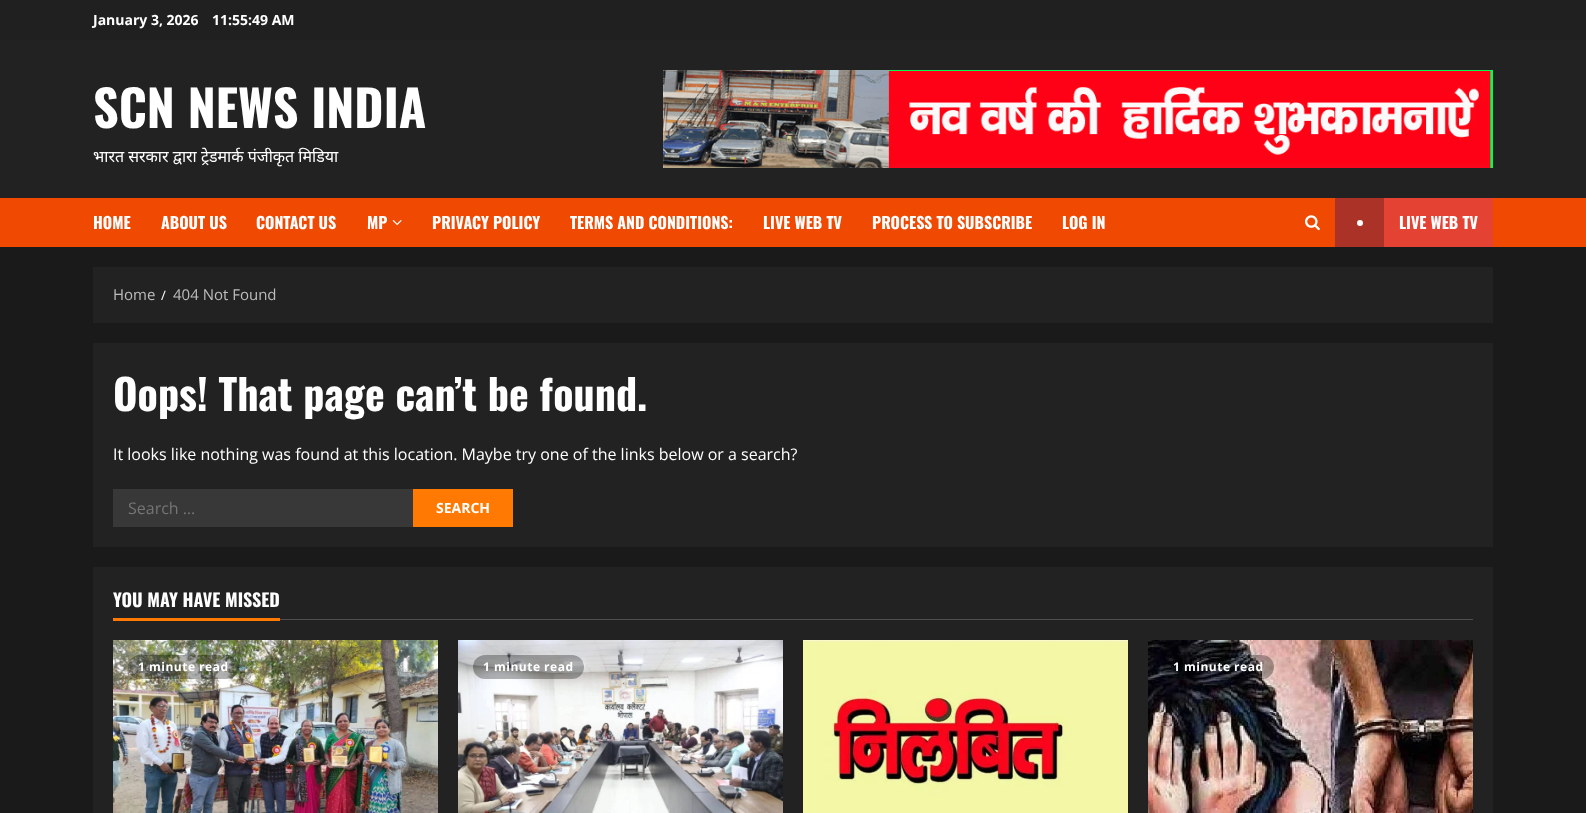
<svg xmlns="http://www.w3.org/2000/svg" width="1586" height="813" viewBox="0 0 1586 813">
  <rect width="100%" height="100%" fill="#1a1a1a"/>
  <rect x="0" y="0" width="1586" height="40" fill="#202020"/>
  <text x="93" y="25" font-family="Open Sans" font-size="14" font-weight="bold" fill="#ffffff">January 3, 2026</text>
  <text x="212" y="25" font-family="Open Sans" font-size="14" font-weight="bold" fill="#ffffff">11:55:49 AM</text>
  <rect x="0" y="40" width="1586" height="158" fill="#222222"/>
  <text x="93" y="128" font-family="Oswald" font-size="50" font-weight="bold" fill="#ffffff">SCN NEWS INDIA</text>
  <text x="93" y="162" font-family="Noto Sans" font-size="16" fill="#ffffff">भारत सरकार द्वारा ट्रेडमार्क पंजीकृत मिडिया</text>
  <image x="663" y="70" width="830" height="98" href="img1.png"/>
  <rect x="0" y="198" width="1586" height="49" fill="#f04901"/>
  <text x="93" y="229" font-family="Oswald" font-size="16" font-weight="bold" fill="#ffffff">HOME</text>
  <text x="161" y="229" font-family="Oswald" font-size="16" font-weight="bold" fill="#ffffff">ABOUT US</text>
  <text x="256" y="229" font-family="Oswald" font-size="16" font-weight="bold" fill="#ffffff">CONTACT US</text>
  <text x="367" y="229" font-family="Oswald" font-size="16" font-weight="bold" fill="#ffffff">MP</text>
  <image x="392" y="220" width="10" height="6" href="img2.png"/>
  <text x="432" y="229" font-family="Oswald" font-size="16" font-weight="bold" fill="#ffffff">PRIVACY POLICY</text>
  <text x="570" y="229" font-family="Oswald" font-size="16" font-weight="bold" fill="#ffffff">TERMS AND CONDITIONS:</text>
  <text x="763" y="229" font-family="Oswald" font-size="16" font-weight="bold" fill="#ffffff">LIVE WEB TV</text>
  <text x="872" y="229" font-family="Oswald" font-size="16" font-weight="bold" fill="#ffffff">PROCESS TO SUBSCRIBE</text>
  <text x="1062" y="229" font-family="Oswald" font-size="16" font-weight="bold" fill="#ffffff">LOG IN</text>
  <image x="1305" y="215" width="15" height="16" href="img3.png"/>
  <rect x="1384" y="198" width="109" height="49" fill="#e44233"/>
  <rect x="1335" y="198" width="49" height="49" fill="#ab3226"/>
  <circle cx="1360" cy="223" r="3" fill="#ffffff"/>
  <text x="1399" y="229" font-family="Oswald" font-size="16" font-weight="bold" fill="#ffffff">LIVE WEB TV</text>
  <rect x="93" y="267" width="1400" height="56" fill="#222222"/>
  <text x="113" y="300" font-family="Open Sans" font-size="15" fill="#bdbdbd">Home</text>
  <text x="161" y="300" font-family="Open Sans" font-size="13" fill="#ffffff">/</text>
  <text x="173" y="300" font-family="Open Sans" font-size="15" fill="#bdbdbd">404 Not Found</text>
  <rect x="93" y="343" width="1400" height="204" fill="#222222"/>
  <text x="113" y="411" font-family="Oswald" font-size="42" font-weight="bold" fill="#ffffff">Oops! That page can’t be found.</text>
  <text x="113" y="460" font-family="Open Sans" font-size="16" fill="#ffffff">It looks like nothing was found at this location. Maybe try one of the links below or a search?</text>
  <rect x="113" y="489" width="300" height="38" fill="#383838"/>
  <text x="128" y="514" font-family="Open Sans" font-size="16" fill="#757575">Search …</text>
  <rect x="413" y="489" width="100" height="38" fill="#ff7903"/>
  <text x="436" y="513" font-family="Open Sans" font-size="14" font-weight="bold" fill="#ffffff">SEARCH</text>
  <rect x="93" y="567" width="1400" height="246" fill="#222222"/>
  <rect x="280" y="619" width="1193" height="1" fill="#4e4e4e"/>
  <text x="113" y="607" font-family="Oswald" font-size="18" font-weight="bold" fill="#ffffff">YOU MAY HAVE MISSED</text>
  <rect x="113" y="618" width="167" height="3" fill="#ff7903"/>
  <image x="113" y="640" width="325" height="173" href="img4.png"/>
  <rect x="128" y="655" width="111" height="24" rx="12" fill="#000000" fill-opacity="0.3"/>
  <text x="138" y="671" font-family="Open Sans" font-size="12" font-weight="bold" letter-spacing="0.5" fill="#ffffff">1 minute read</text>
  <image x="458" y="640" width="325" height="173" href="img5.png"/>
  <rect x="473" y="655" width="111" height="24" rx="12" fill="#000000" fill-opacity="0.3"/>
  <text x="483" y="671" font-family="Open Sans" font-size="12" font-weight="bold" letter-spacing="0.5" fill="#ffffff">1 minute read</text>
  <image x="803" y="640" width="325" height="173" href="img6.png"/>
  <image x="1148" y="640" width="325" height="173" href="img7.png"/>
  <rect x="1163" y="655" width="111" height="24" rx="12" fill="#000000" fill-opacity="0.3"/>
  <text x="1173" y="671" font-family="Open Sans" font-size="12" font-weight="bold" letter-spacing="0.5" fill="#ffffff">1 minute read</text>
</svg>
